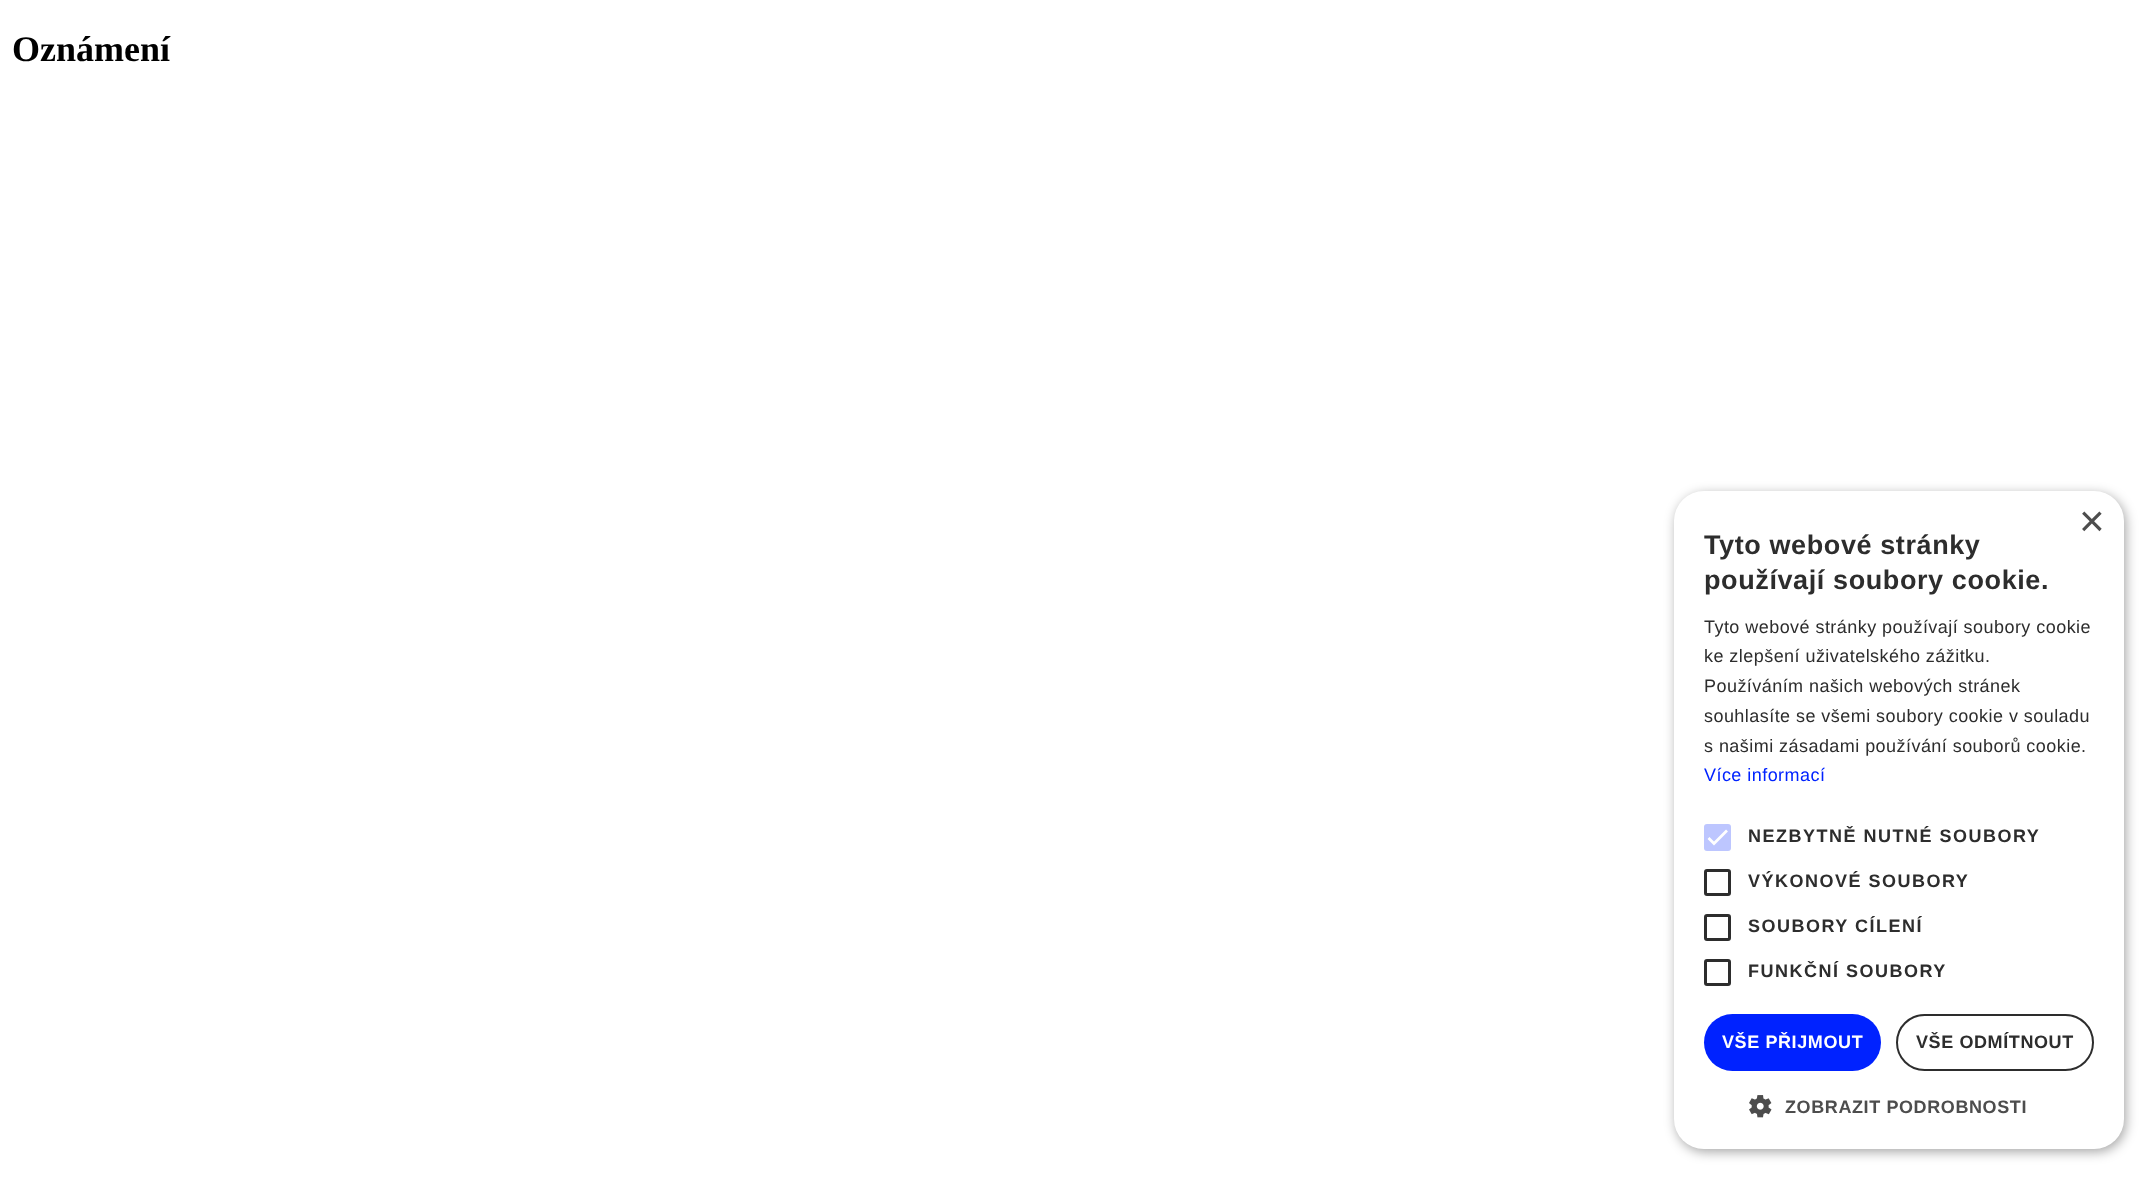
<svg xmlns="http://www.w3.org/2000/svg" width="2154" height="1178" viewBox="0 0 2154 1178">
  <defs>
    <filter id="blur1" x="-50%" y="-200%" width="200%" height="500%"><feGaussianBlur stdDeviation="6"/></filter>
  </defs>
  <rect width="100%" height="100%" fill="#ffffff"/>
  <text x="12" y="61" font-family="Liberation Serif" font-size="36" font-weight="bold" fill="#000000">Oznámení</text>
  <rect x="1676" y="494" width="450" height="658" rx="30" fill="#000000" fill-opacity="0.35" filter="url(#blur1)"/>
  <rect x="1674" y="491" width="450" height="658" rx="30" fill="#ffffff"/>
  <text x="2079" y="536" font-family="Liberation Sans" font-size="44" fill="#4d4d4d">×</text>
  <text x="1704" y="554" font-family="Liberation Sans" font-size="27" font-weight="bold" letter-spacing="0.6" fill="#2d2d2d">Tyto webové stránky</text>
  <text x="1704" y="589" font-family="Liberation Sans" font-size="27" font-weight="bold" letter-spacing="0.6" fill="#2d2d2d">používají soubory cookie.</text>
  <text x="1704" y="633" font-family="Liberation Sans" font-size="18" letter-spacing="0.45" fill="#2d2d2d">Tyto webové stránky používají soubory cookie</text>
  <text x="1704" y="662" font-family="Liberation Sans" font-size="18" letter-spacing="0.45" fill="#2d2d2d">ke zlepšení uživatelského zážitku.</text>
  <text x="1704" y="692" font-family="Liberation Sans" font-size="18" letter-spacing="0.45" fill="#2d2d2d">Používáním našich webových stránek</text>
  <text x="1704" y="722" font-family="Liberation Sans" font-size="18" letter-spacing="0.45" fill="#2d2d2d">souhlasíte se všemi soubory cookie v souladu</text>
  <text x="1704" y="752" font-family="Liberation Sans" font-size="18" letter-spacing="0.45" fill="#2d2d2d">s našimi zásadami používání souborů cookie.</text>
  <text x="1704" y="781" font-family="Liberation Sans" font-size="18" letter-spacing="0.45" fill="#0022ff">Více informací</text>
  <rect x="1704" y="824" width="27" height="27" rx="3" fill="#bdc6ff"/>
  <path d="M1708.5 838L1714 843.5L1727 830.5" fill="none" stroke="#ffffff" stroke-width="2.7"/>
  <text x="1748" y="842" font-family="Liberation Sans" font-size="18" font-weight="bold" letter-spacing="1.5" fill="#2d2d2d">NEZBYTNĚ NUTNÉ SOUBORY</text>
  <rect x="1705.5" y="870.5" width="24" height="24" rx="1.5" fill="none" stroke="#2d2d2d" stroke-width="3"/>
  <text x="1748" y="887" font-family="Liberation Sans" font-size="18" font-weight="bold" letter-spacing="1.5" fill="#2d2d2d">VÝKONOVÉ SOUBORY</text>
  <rect x="1705.5" y="915.5" width="24" height="24" rx="1.5" fill="none" stroke="#2d2d2d" stroke-width="3"/>
  <text x="1748" y="932" font-family="Liberation Sans" font-size="18" font-weight="bold" letter-spacing="1.5" fill="#2d2d2d">SOUBORY CÍLENÍ</text>
  <rect x="1705.5" y="960.5" width="24" height="24" rx="1.5" fill="none" stroke="#2d2d2d" stroke-width="3"/>
  <text x="1748" y="977" font-family="Liberation Sans" font-size="18" font-weight="bold" letter-spacing="1.5" fill="#2d2d2d">FUNKČNÍ SOUBORY</text>
  <rect x="1704" y="1014" width="177" height="57" rx="28.5" fill="#0022ff"/>
  <text x="1722" y="1048" font-family="Liberation Sans" font-size="18" font-weight="bold" letter-spacing="0.6" fill="#ffffff">VŠE PŘIJMOUT</text>
  <rect x="1897" y="1015" width="196" height="55" rx="27.5" fill="none" stroke="#2d2d2d" stroke-width="2"/>
  <text x="1916" y="1048" font-family="Liberation Sans" font-size="18" font-weight="bold" letter-spacing="0.6" fill="#2d2d2d">VŠE ODMÍTNOUT</text>
  <image x="1749" y="1095" width="23" height="23" href="img1.png"/>
  <text x="1785" y="1113" font-family="Liberation Sans" font-size="18" font-weight="bold" letter-spacing="0.6" fill="#4d4d4d">ZOBRAZIT PODROBNOSTI</text>
</svg>
